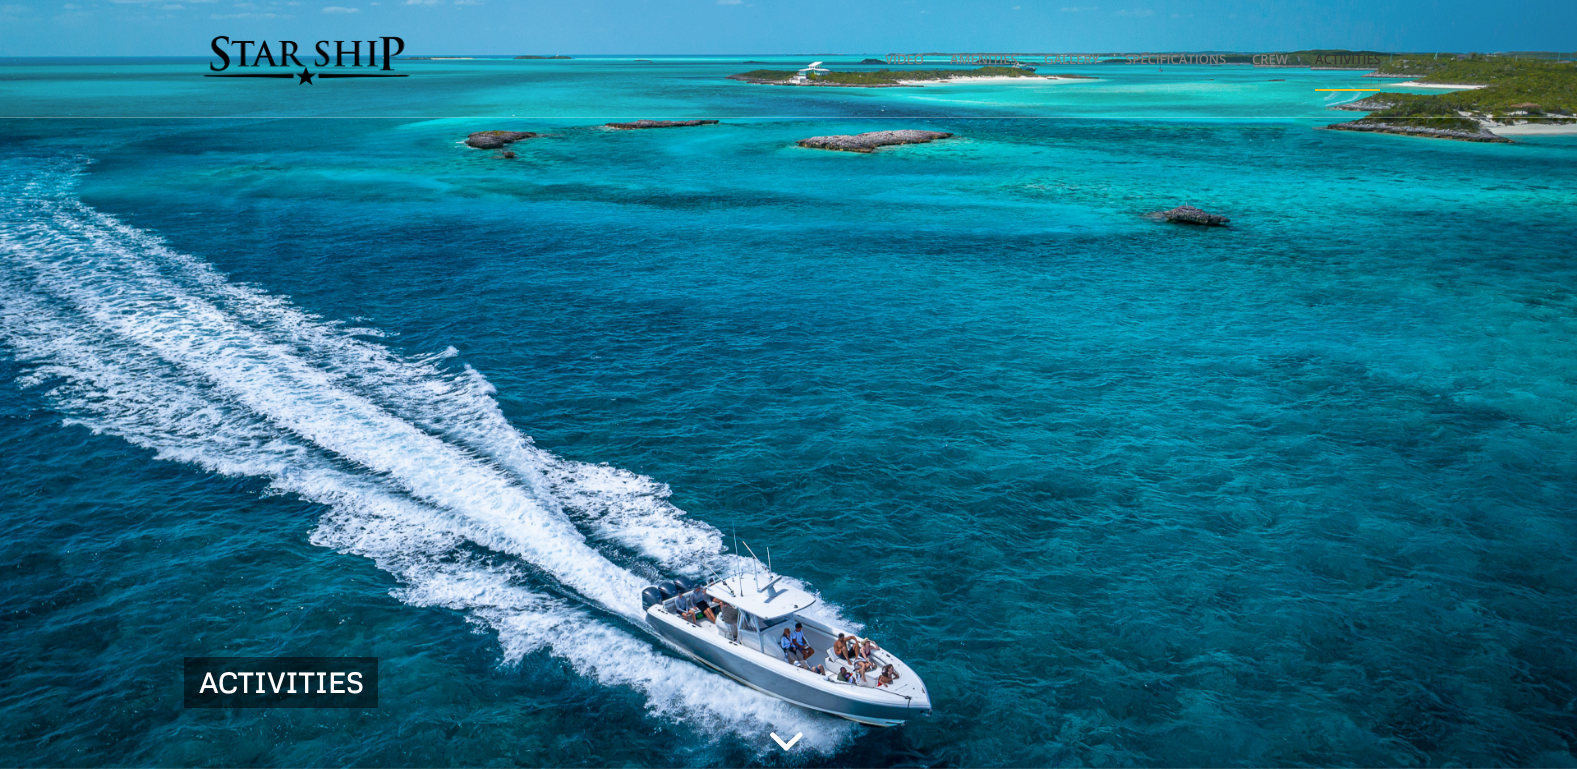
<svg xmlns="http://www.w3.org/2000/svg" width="1577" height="769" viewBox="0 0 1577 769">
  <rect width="100%" height="100%" fill="#ffffff"/>
  <image x="0" y="0" width="1577" height="769" href="img2.png"/>
  <rect x="0" y="0" width="1577" height="118" fill="#ffffff" fill-opacity="0.1"/>
  <rect x="0" y="117" width="1577" height="1" fill="#ffffff" fill-opacity="0.25"/>
  <image x="203" y="35" width="206" height="51" href="img1.png"/>
  <text x="885" y="64" font-family="Open Sans" font-size="13" font-weight="600" fill="#808080">VIDEO</text>
  <text x="950" y="64" font-family="Open Sans" font-size="13" font-weight="600" fill="#808080">AMENITIES</text>
  <text x="1044" y="64" font-family="Open Sans" font-size="13" font-weight="600" fill="#808080">GALLERY</text>
  <text x="1125" y="64" font-family="Open Sans" font-size="13" font-weight="600" fill="#808080">SPECIFICATIONS</text>
  <text x="1252" y="64" font-family="Open Sans" font-size="13" font-weight="600" fill="#808080">CREW</text>
  <text x="1315" y="64" font-family="Open Sans" font-size="13" font-weight="600" fill="#333333">ACTIVITIES</text>
  <rect x="1315" y="89" width="65" height="2" fill="#efbb20"/>
  <rect x="184" y="657" width="194" height="51" fill="#000000" fill-opacity="0.5"/>
  <text x="199" y="693" font-family="Metrophobic" font-size="28" font-weight="bold" fill="#ffffff">ACTIVITIES</text>
  <image x="770" y="732" width="33" height="19" href="img3.png"/>
</svg>
